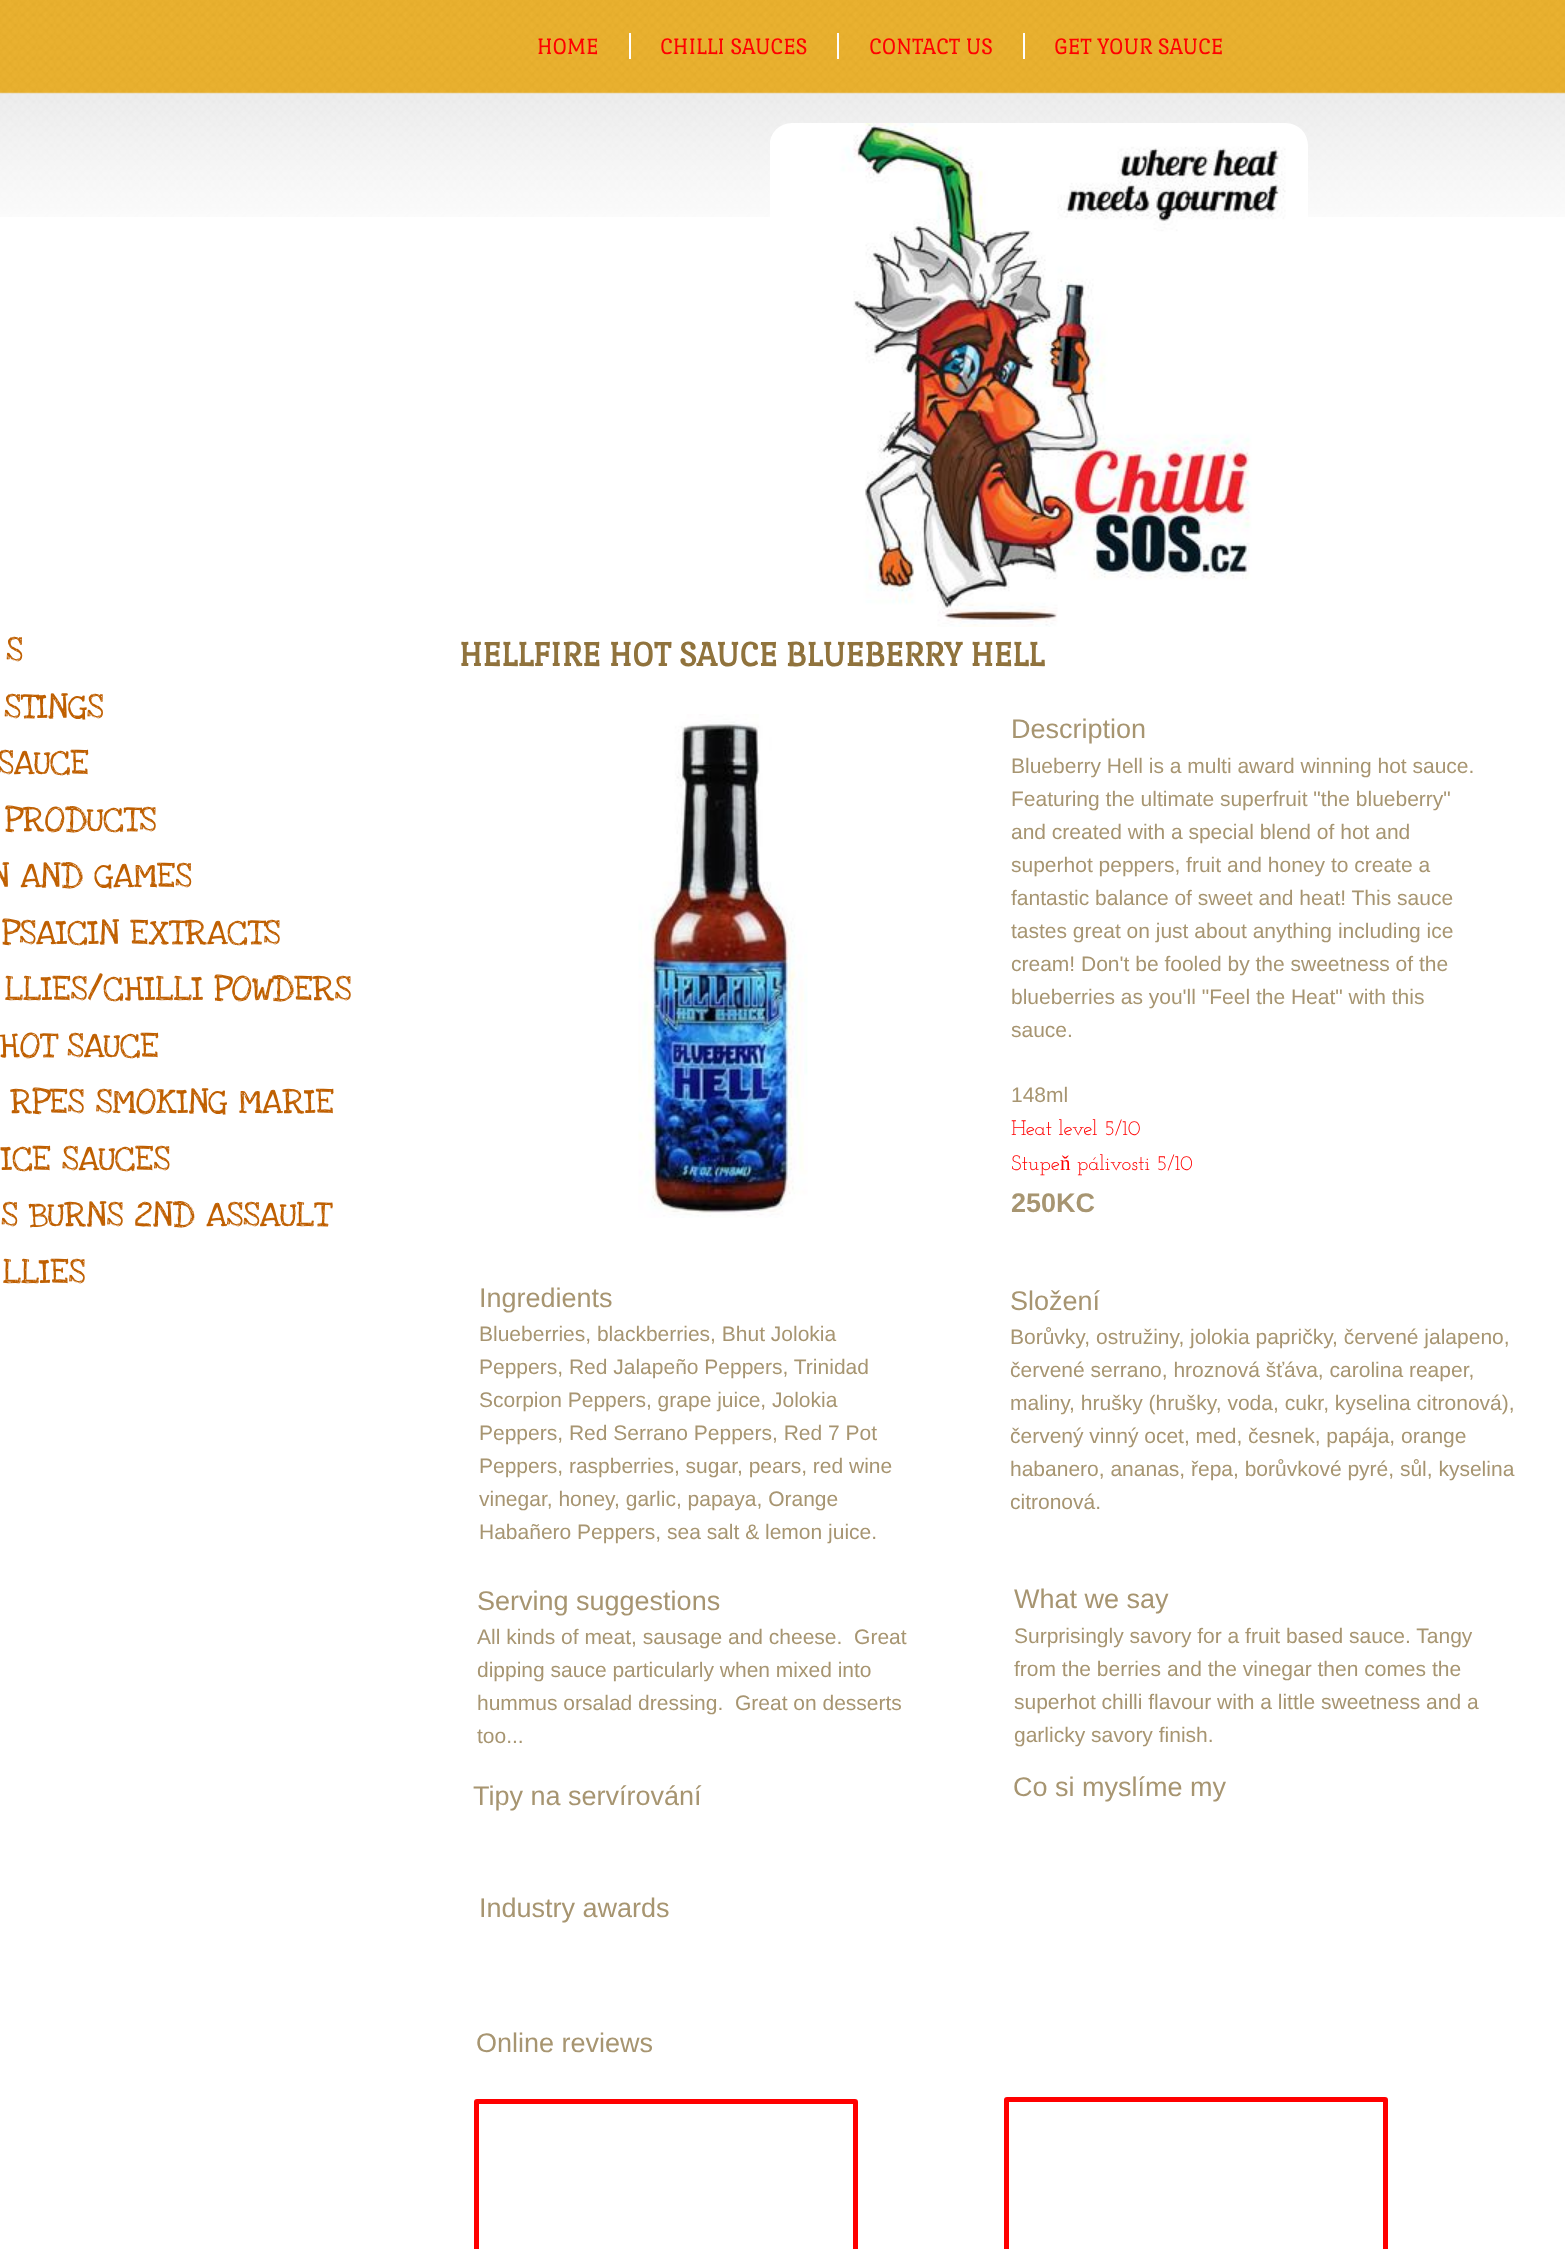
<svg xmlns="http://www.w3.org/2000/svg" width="1565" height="2249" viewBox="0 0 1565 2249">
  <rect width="100%" height="100%" fill="#ffffff"/>
  <image x="0" y="0" width="1565" height="217" href="img1.png"/>
  <text x="537" y="54" font-family="Port Lligat Slab" font-size="24" fill="#ff0000">HOME</text>
  <text x="660" y="54" font-family="Port Lligat Slab" font-size="24" fill="#ff0000">CHILLI SAUCES</text>
  <rect x="629" y="33" width="2" height="26" fill="#ffffff"/>
  <text x="869" y="54" font-family="Port Lligat Slab" font-size="24" fill="#ff0000">CONTACT US</text>
  <rect x="837" y="33" width="2" height="26" fill="#ffffff"/>
  <text x="1054" y="54" font-family="Port Lligat Slab" font-size="24" fill="#ff0000">GET YOUR SAUCE</text>
  <rect x="1023" y="33" width="2" height="26" fill="#ffffff"/>
  <image x="770" y="123" width="538" height="504" href="img2.png"/>
  <text x="6" y="661" font-family="Love Ya Like A Sister" font-size="36" fill="#bf5f00">S</text>
  <text x="4" y="718" font-family="Love Ya Like A Sister" font-size="36" fill="#bf5f00">STINGS</text>
  <text x="-3" y="774" font-family="Love Ya Like A Sister" font-size="36" fill="#bf5f00">SAUCE</text>
  <text x="5" y="831" font-family="Love Ya Like A Sister" font-size="36" fill="#bf5f00">PRODUCTS</text>
  <text x="-11" y="887" font-family="Love Ya Like A Sister" font-size="36" fill="#bf5f00">N AND GAMES</text>
  <text x="2" y="944" font-family="Love Ya Like A Sister" font-size="36" fill="#bf5f00">PSAICIN EXTRACTS</text>
  <text x="5" y="1000" font-family="Love Ya Like A Sister" font-size="36" fill="#bf5f00">LLIES/CHILLI POWDERS</text>
  <text x="-1" y="1057" font-family="Love Ya Like A Sister" font-size="36" fill="#bf5f00">HOT SAUCE</text>
  <text x="10" y="1113" font-family="Love Ya Like A Sister" font-size="36" fill="#bf5f00">RPES SMOKING MARIE</text>
  <text x="1" y="1170" font-family="Love Ya Like A Sister" font-size="36" fill="#bf5f00">ICE SAUCES</text>
  <text x="1" y="1226" font-family="Love Ya Like A Sister" font-size="36" fill="#bf5f00">S BURNS 2ND ASSAULT</text>
  <text x="3" y="1283" font-family="Love Ya Like A Sister" font-size="36" fill="#bf5f00">LLIES</text>
  <text x="459" y="666" font-family="Port Lligat Slab" font-size="36" font-weight="bold" fill="#90733d">HELLFIRE HOT SAUCE BLUEBERRY HELL</text>
  <image x="638" y="714" width="170" height="504" href="img3.png"/>
  <text x="1011" y="738" font-family="Liberation Sans" font-size="27" fill="#a79571">Description</text>
  <text x="1011" y="773" font-family="Liberation Sans" font-size="21" fill="#a79571">Blueberry Hell is a multi award winning hot sauce.</text>
  <text x="1011" y="806" font-family="Liberation Sans" font-size="21" fill="#a79571">Featuring the ultimate superfruit "the blueberry"</text>
  <text x="1011" y="839" font-family="Liberation Sans" font-size="21" fill="#a79571">and created with a special blend of hot and</text>
  <text x="1011" y="872" font-family="Liberation Sans" font-size="21" fill="#a79571">superhot peppers, fruit and honey to create a</text>
  <text x="1011" y="905" font-family="Liberation Sans" font-size="21" fill="#a79571">fantastic balance of sweet and heat! This sauce</text>
  <text x="1011" y="938" font-family="Liberation Sans" font-size="21" fill="#a79571">tastes great on just about anything including ice</text>
  <text x="1011" y="971" font-family="Liberation Sans" font-size="21" fill="#a79571">cream! Don't be fooled by the sweetness of the</text>
  <text x="1011" y="1004" font-family="Liberation Sans" font-size="21" fill="#a79571">blueberries as you'll "Feel the Heat" with this</text>
  <text x="1011" y="1037" font-family="Liberation Sans" font-size="21" fill="#a79571">sauce.</text>
  <text x="1011" y="1102" font-family="Liberation Sans" font-size="21" fill="#a79571">148ml</text>
  <text x="1011" y="1135" font-family="Josefin Slab" font-size="21" font-weight="100" fill="#ff0000">Heat level 5/10</text>
  <text x="1011" y="1170" font-family="Josefin Slab" font-size="21" font-weight="100" fill="#ff0000">Stupe</text>
  <text x="1060" y="1170" font-family="Liberation Serif" font-size="21" fill="#ff0000">ň</text>
  <text x="1077" y="1170" font-family="Josefin Slab" font-size="21" font-weight="100" fill="#ff0000">pálivosti 5/10</text>
  <text x="1011" y="1212" font-family="Liberation Sans" font-size="27" font-weight="bold" fill="#a79571">250KC</text>
  <text x="479" y="1307" font-family="Liberation Sans" font-size="27" fill="#a79571">Ingredients</text>
  <text x="479" y="1341" font-family="Liberation Sans" font-size="21" fill="#a79571">Blueberries, blackberries, Bhut Jolokia</text>
  <text x="479" y="1374" font-family="Liberation Sans" font-size="21" fill="#a79571">Peppers, Red Jalapeño Peppers, Trinidad</text>
  <text x="479" y="1407" font-family="Liberation Sans" font-size="21" fill="#a79571">Scorpion Peppers, grape juice, Jolokia</text>
  <text x="479" y="1440" font-family="Liberation Sans" font-size="21" fill="#a79571">Peppers, Red Serrano Peppers, Red 7 Pot</text>
  <text x="479" y="1473" font-family="Liberation Sans" font-size="21" fill="#a79571">Peppers, raspberries, sugar, pears, red wine</text>
  <text x="479" y="1506" font-family="Liberation Sans" font-size="21" fill="#a79571">vinegar, honey, garlic, papaya, Orange</text>
  <text x="479" y="1539" font-family="Liberation Sans" font-size="21" fill="#a79571">Habañero Peppers, sea salt &amp; lemon juice.</text>
  <text x="1010" y="1310" font-family="Liberation Sans" font-size="27" fill="#a79571">Složení</text>
  <text x="1010" y="1344" font-family="Liberation Sans" font-size="21" fill="#a79571">Borůvky, ostružiny, jolokia papričky, červené jalapeno,</text>
  <text x="1010" y="1377" font-family="Liberation Sans" font-size="21" fill="#a79571">červené serrano, hroznová šťáva, carolina reaper,</text>
  <text x="1010" y="1410" font-family="Liberation Sans" font-size="21" fill="#a79571">maliny, hrušky (hrušky, voda, cukr, kyselina citronová),</text>
  <text x="1010" y="1443" font-family="Liberation Sans" font-size="21" fill="#a79571">červený vinný ocet, med, česnek, papája, orange</text>
  <text x="1010" y="1476" font-family="Liberation Sans" font-size="21" fill="#a79571">habanero, ananas, řepa, borůvkové pyré, sůl, kyselina</text>
  <text x="1010" y="1509" font-family="Liberation Sans" font-size="21" fill="#a79571">citronová.</text>
  <text x="477" y="1610" font-family="Liberation Sans" font-size="27" fill="#a79571">Serving suggestions</text>
  <text x="477" y="1644" font-family="Liberation Sans" font-size="21" fill="#a79571" xml:space="preserve">All kinds of meat, sausage and cheese.  Great</text>
  <text x="477" y="1677" font-family="Liberation Sans" font-size="21" fill="#a79571">dipping sauce particularly when mixed into</text>
  <text x="477" y="1710" font-family="Liberation Sans" font-size="21" fill="#a79571" xml:space="preserve">hummus orsalad dressing.  Great on desserts</text>
  <text x="477" y="1743" font-family="Liberation Sans" font-size="21" fill="#a79571">too...</text>
  <text x="1014" y="1608" font-family="Liberation Sans" font-size="27" fill="#a79571">What we say</text>
  <text x="1014" y="1643" font-family="Liberation Sans" font-size="21" fill="#a79571">Surprisingly savory for a fruit based sauce. Tangy</text>
  <text x="1014" y="1676" font-family="Liberation Sans" font-size="21" fill="#a79571">from the berries and the vinegar then comes the</text>
  <text x="1014" y="1709" font-family="Liberation Sans" font-size="21" fill="#a79571">superhot chilli flavour with a little sweetness and a</text>
  <text x="1014" y="1742" font-family="Liberation Sans" font-size="21" fill="#a79571">garlicky savory finish.</text>
  <text x="473" y="1805" font-family="Liberation Sans" font-size="27" fill="#a79571">Tipy na servírování</text>
  <text x="1013" y="1796" font-family="Liberation Sans" font-size="27" fill="#a79571">Co si myslíme my</text>
  <text x="479" y="1917" font-family="Liberation Sans" font-size="27" fill="#a79571">Industry awards</text>
  <text x="476" y="2052" font-family="Liberation Sans" font-size="27" fill="#a79571">Online reviews</text>
  <rect x="476.5" y="2101.5" width="379" height="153" rx="0.5" fill="none" stroke="#ff0000" stroke-width="5"/>
  <rect x="1006.5" y="2099.5" width="379" height="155" rx="0.5" fill="none" stroke="#ff0000" stroke-width="5"/>
</svg>
